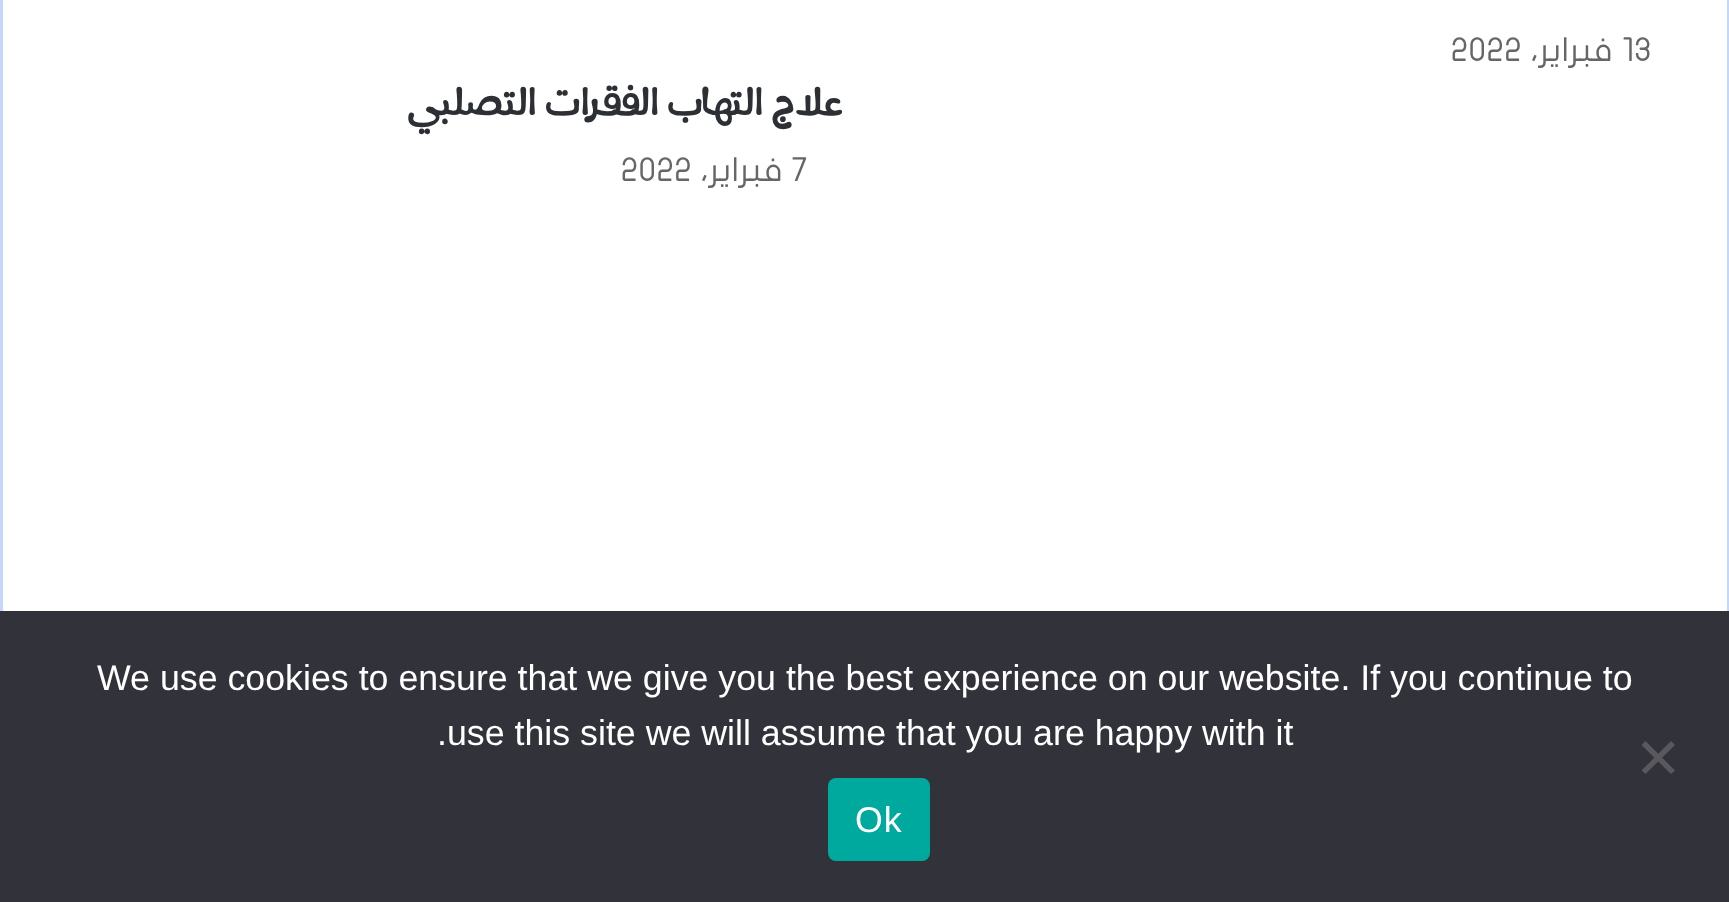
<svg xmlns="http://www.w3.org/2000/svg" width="1729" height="902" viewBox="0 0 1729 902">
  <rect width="100%" height="100%" fill="#ffffff"/>
  <rect x="1.5" y="-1.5" width="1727" height="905" fill="none" stroke="#c2d7f9" stroke-width="3"/>
  <text x="1451" y="61" font-family="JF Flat" font-size="33" fill="#666666">2022</text>
  <text x="1613" y="61" font-family="JF Flat" font-size="33" direction="rtl" fill="#666666">فبراير،</text>
  <text x="1622" y="61" font-family="JF Flat" font-size="33" fill="#666666">13</text>
  <text x="843" y="115" font-family="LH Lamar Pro" font-size="38.5" font-weight="bold" direction="rtl" fill="#2c2f34">علاج التهاب الفقرات التصلبي</text>
  <text x="621" y="181" font-family="JF Flat" font-size="33" fill="#666666">2022</text>
  <text x="783" y="181" font-family="JF Flat" font-size="33" direction="rtl" fill="#666666">فبراير،</text>
  <text x="791" y="181" font-family="JF Flat" font-size="33" fill="#666666">7</text>
  <rect x="0" y="611" width="1729" height="291" fill="#32323a"/>
  <text x="97" y="690" font-family="Liberation Sans" font-size="35.75" fill="#ffffff">We use cookies to ensure that we give you the best experience on our website. If you continue to</text>
  <text x="437" y="745" font-family="Liberation Sans" font-size="35.75" fill="#ffffff">.use this site we will assume that you are happy with it</text>
  <path d="M1671 741L1675 745L1645.5 774L1641.5 770.5Z" fill="#59595d"/>
  <path d="M1641.5 745L1645.5 741L1675 770.5L1671 774Z" fill="#59595d"/>
  <rect x="828" y="778" width="102" height="83" rx="8" fill="#00a99d"/>
  <text x="855" y="832" font-family="Liberation Sans" font-size="35.75" letter-spacing="1" fill="#ffffff">Ok</text>
</svg>
